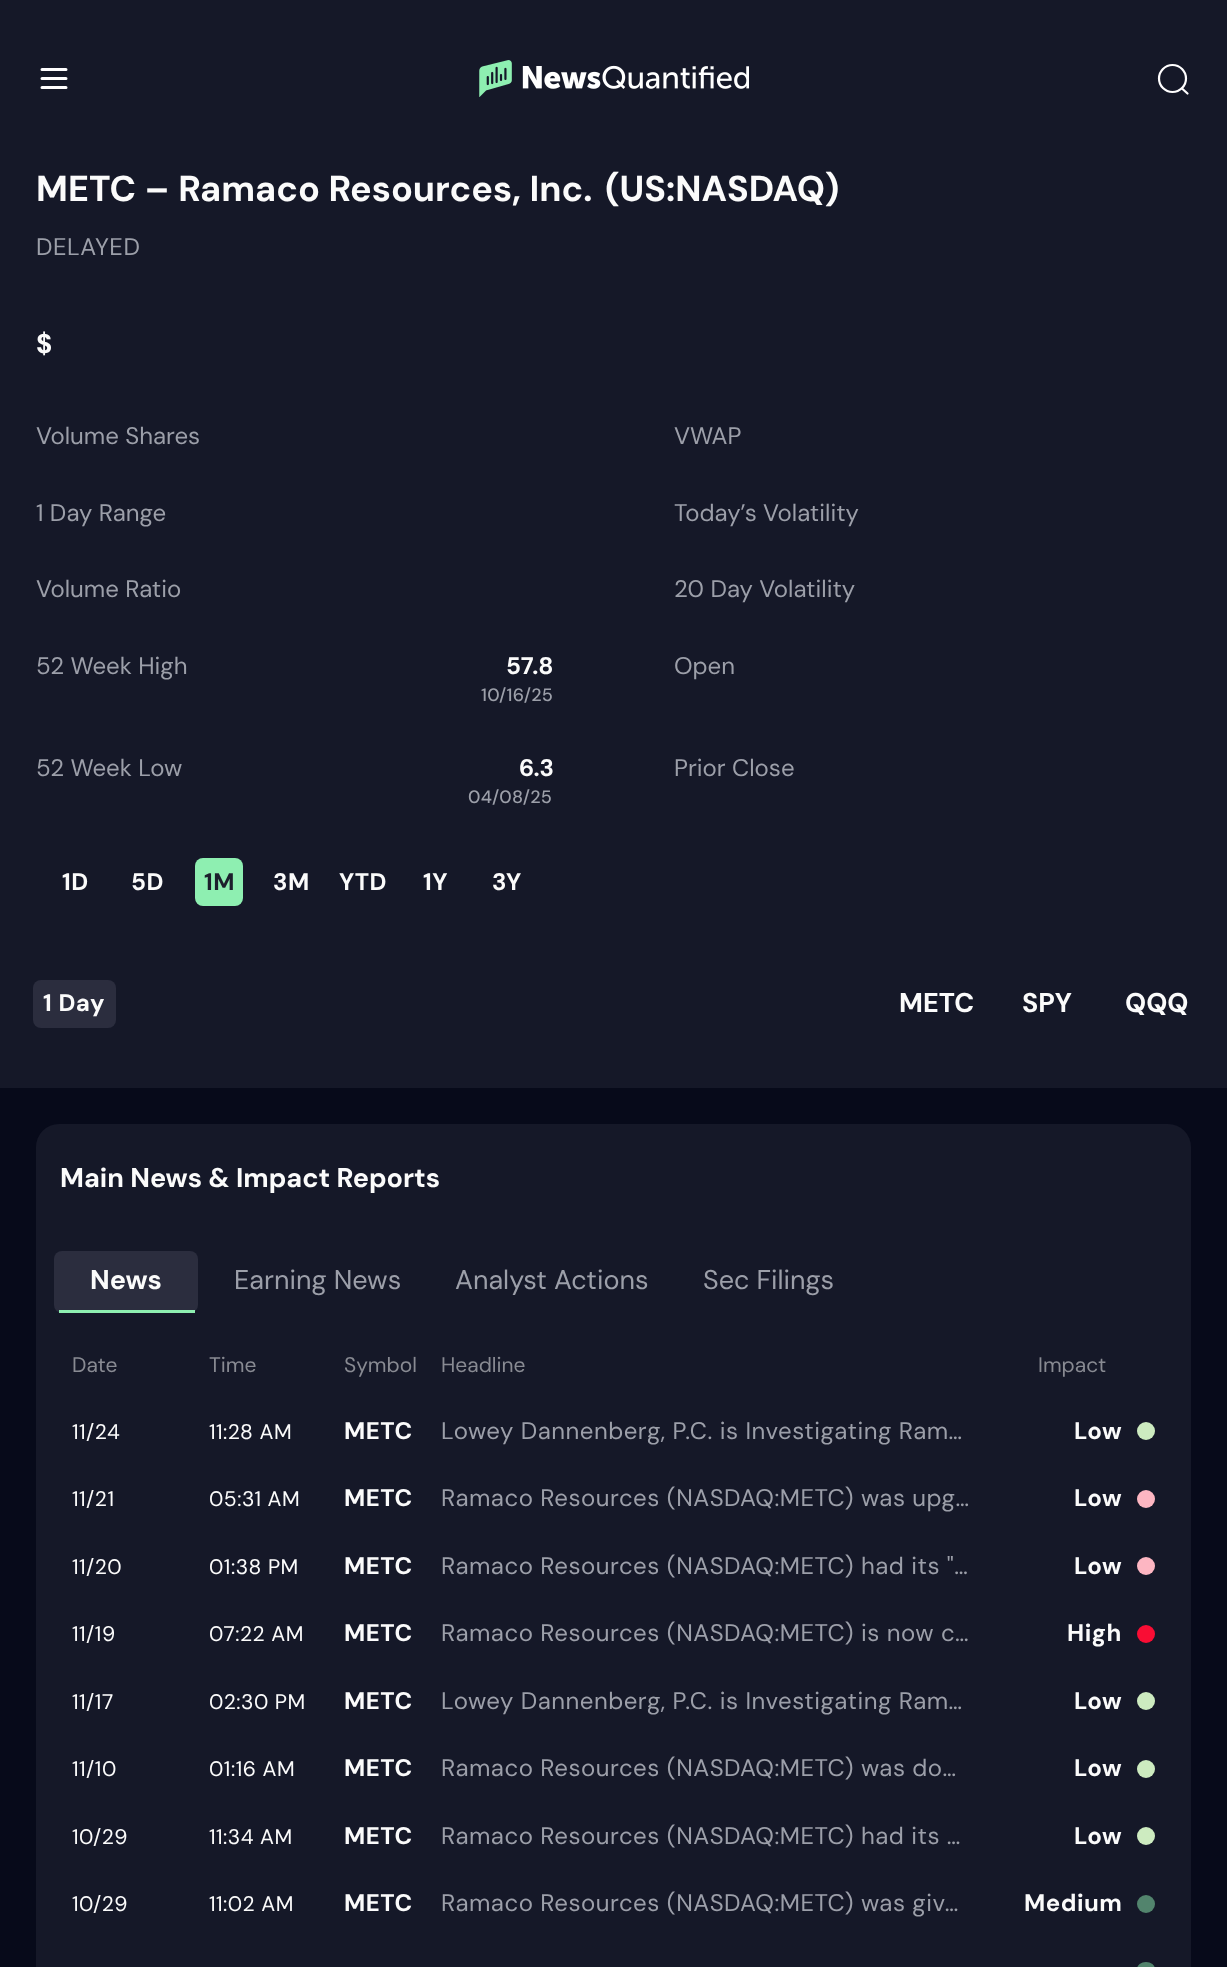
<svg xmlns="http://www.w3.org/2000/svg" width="1227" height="1967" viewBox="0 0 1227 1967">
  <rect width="100%" height="100%" fill="#151828"/>
  <path d="M42 87.5H66M42 69.5H66ZM42 78.5H66Z" fill="none" stroke="#fffeff" stroke-width="3" stroke-linecap="round" stroke-linejoin="round"/>
  <image x="479" y="60" width="270" height="37" href="img1.png"/>
  <circle cx="1172.5" cy="78.5" r="13.5" fill="none" stroke="#fffeff" stroke-width="2.2"/>
  <path d="M1182 88.5L1187.5 93.5" fill="none" stroke="#fffeff" stroke-width="2.2" stroke-linecap="round" stroke-linejoin="round"/>
  <text x="36" y="201" font-family="DM Sans" font-size="36" font-weight="bold" fill="#fbfbfb">METC – Ramaco Resources, Inc.</text>
  <text x="605" y="201" font-family="DM Sans" font-size="36" font-weight="bold" fill="#fbfbfb">(US:NASDAQ)</text>
  <text x="36" y="255" font-family="DM Sans" font-size="24" letter-spacing="0.5" fill="#9c9fa9">DELAYED</text>
  <text x="36" y="353" font-family="DM Sans" font-size="27" font-weight="bold" fill="#fbfbfb">$</text>
  <text x="36" y="444" font-family="DM Sans" font-size="24" fill="#9c9fa9">Volume Shares</text>
  <text x="36" y="521" font-family="DM Sans" font-size="24" fill="#9c9fa9">1 Day Range</text>
  <text x="36" y="597" font-family="DM Sans" font-size="24" fill="#9c9fa9">Volume Ratio</text>
  <text x="36" y="674" font-family="DM Sans" font-size="24" fill="#9c9fa9">52 Week High</text>
  <text x="506" y="674" font-family="DM Sans" font-size="24" font-weight="bold" fill="#fbfbfb">57.8</text>
  <text x="481" y="701" font-family="DM Sans" font-size="18" font-weight="500" letter-spacing="0.25" fill="#9c9fa9">10/16/25</text>
  <text x="36" y="776" font-family="DM Sans" font-size="24" fill="#9c9fa9">52 Week Low</text>
  <text x="519" y="776" font-family="DM Sans" font-size="24" font-weight="bold" fill="#fbfbfb">6.3</text>
  <text x="468" y="803" font-family="DM Sans" font-size="18" font-weight="500" letter-spacing="0.25" fill="#9c9fa9">04/08/25</text>
  <text x="674" y="444" font-family="DM Sans" font-size="24" fill="#9c9fa9">VWAP</text>
  <text x="674" y="521" font-family="DM Sans" font-size="24" fill="#9c9fa9">Today’s Volatility</text>
  <text x="674" y="597" font-family="DM Sans" font-size="24" fill="#9c9fa9">20 Day Volatility</text>
  <text x="674" y="674" font-family="DM Sans" font-size="24" fill="#9c9fa9">Open</text>
  <text x="674" y="776" font-family="DM Sans" font-size="24" fill="#9c9fa9">Prior Close</text>
  <text x="62" y="890" font-family="DM Sans" font-size="24" font-weight="bold" letter-spacing="0.5" fill="#fbfbfb">1D</text>
  <text x="131" y="890" font-family="DM Sans" font-size="24" font-weight="bold" letter-spacing="0.5" fill="#fbfbfb">5D</text>
  <rect x="195" y="858" width="48" height="48" rx="8" fill="#8eefb1"/>
  <text x="204" y="890" font-family="DM Sans" font-size="24" font-weight="bold" letter-spacing="0.5" fill="#1c1f2c">1M</text>
  <text x="273" y="890" font-family="DM Sans" font-size="24" font-weight="bold" letter-spacing="0.5" fill="#fbfbfb">3M</text>
  <text x="339" y="890" font-family="DM Sans" font-size="24" font-weight="bold" letter-spacing="0.5" fill="#fbfbfb">YTD</text>
  <text x="423" y="890" font-family="DM Sans" font-size="24" font-weight="bold" letter-spacing="0.5" fill="#fbfbfb">1Y</text>
  <text x="492" y="890" font-family="DM Sans" font-size="24" font-weight="bold" letter-spacing="0.5" fill="#fbfbfb">3Y</text>
  <rect x="33" y="980" width="83" height="48" rx="8" fill="#2b2d3e"/>
  <text x="43" y="1011" font-family="DM Sans" font-size="24" font-weight="bold" letter-spacing="0.5" fill="#fbfbfb">1 Day</text>
  <text x="899" y="1012" font-family="DM Sans" font-size="27" font-weight="bold" fill="#fbfbfb">METC</text>
  <text x="1022" y="1012" font-family="DM Sans" font-size="27" font-weight="bold" fill="#fbfbfb">SPY</text>
  <text x="1125" y="1012" font-family="DM Sans" font-size="27" font-weight="bold" fill="#fbfbfb">QQQ</text>
  <rect x="0" y="1088" width="1227" height="879" fill="#070a1a"/>
  <rect x="36" y="1124" width="1155" height="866" rx="23" fill="#151828"/>
  <text x="60" y="1187" font-family="DM Sans" font-size="27" font-weight="bold" fill="#fbfbfb">Main News &amp; Impact Reports</text>
  <rect x="54" y="1251" width="144" height="62" rx="8" fill="#2b2d3e"/>
  <rect x="59" y="1310" width="136" height="3" fill="#8eefb1"/>
  <text x="90" y="1289" font-family="DM Sans" font-size="27" font-weight="bold" fill="#fbfbfb">News</text>
  <text x="234" y="1289" font-family="DM Sans" font-size="27" fill="#9c9fa9">Earning News</text>
  <text x="455" y="1289" font-family="DM Sans" font-size="27" fill="#9c9fa9">Analyst Actions</text>
  <text x="703" y="1289" font-family="DM Sans" font-size="27" fill="#9c9fa9">Sec Filings</text>
  <text x="72" y="1372" font-family="DM Sans" font-size="21" fill="#888a92">Date</text>
  <text x="209" y="1372" font-family="DM Sans" font-size="21" fill="#888a92">Time</text>
  <text x="344" y="1372" font-family="DM Sans" font-size="21" fill="#888a92">Symbol</text>
  <text x="441" y="1372" font-family="DM Sans" font-size="21" fill="#888a92">Headline</text>
  <text x="1038" y="1372" font-family="DM Sans" font-size="21" fill="#888a92">Impact</text>
  <text x="72" y="1439" font-family="DM Sans" font-size="21" letter-spacing="0.5" fill="#fbfbfb">11/24</text>
  <text x="209" y="1439" font-family="DM Sans" font-size="21" letter-spacing="0.5" fill="#fbfbfb">11:28 AM</text>
  <text x="344" y="1439" font-family="DM Sans" font-size="24" font-weight="bold" letter-spacing="0.5" fill="#fbfbfb">METC</text>
  <text x="441" y="1439" font-family="DM Sans" font-size="24" letter-spacing="0.5" fill="#9c9fa9">Lowey Dannenberg, P.C. is Investigating Ram…</text>
  <text x="1074" y="1439" font-family="DM Sans" font-size="24" font-weight="bold" letter-spacing="0.5" fill="#fbfbfb">Low</text>
  <circle cx="1146" cy="1431" r="9" fill="#cdebc0"/>
  <text x="72" y="1506" font-family="DM Sans" font-size="21" letter-spacing="0.5" fill="#fbfbfb">11/21</text>
  <text x="209" y="1506" font-family="DM Sans" font-size="21" letter-spacing="0.5" fill="#fbfbfb">05:31 AM</text>
  <text x="344" y="1506" font-family="DM Sans" font-size="24" font-weight="bold" letter-spacing="0.5" fill="#fbfbfb">METC</text>
  <text x="441" y="1506" font-family="DM Sans" font-size="24" letter-spacing="0.5" fill="#9c9fa9">Ramaco Resources (NASDAQ:METC) was upg…</text>
  <text x="1074" y="1506" font-family="DM Sans" font-size="24" font-weight="bold" letter-spacing="0.5" fill="#fbfbfb">Low</text>
  <circle cx="1146" cy="1499" r="9" fill="#fdb6c2"/>
  <text x="72" y="1574" font-family="DM Sans" font-size="21" letter-spacing="0.5" fill="#fbfbfb">11/20</text>
  <text x="209" y="1574" font-family="DM Sans" font-size="21" letter-spacing="0.5" fill="#fbfbfb">01:38 PM</text>
  <text x="344" y="1574" font-family="DM Sans" font-size="24" font-weight="bold" letter-spacing="0.5" fill="#fbfbfb">METC</text>
  <text x="441" y="1574" font-family="DM Sans" font-size="24" letter-spacing="0.5" fill="#9c9fa9">Ramaco Resources (NASDAQ:METC) had its "…</text>
  <text x="1074" y="1574" font-family="DM Sans" font-size="24" font-weight="bold" letter-spacing="0.5" fill="#fbfbfb">Low</text>
  <circle cx="1146" cy="1566" r="9" fill="#fdb6c2"/>
  <text x="72" y="1641" font-family="DM Sans" font-size="21" letter-spacing="0.5" fill="#fbfbfb">11/19</text>
  <text x="209" y="1641" font-family="DM Sans" font-size="21" letter-spacing="0.5" fill="#fbfbfb">07:22 AM</text>
  <text x="344" y="1641" font-family="DM Sans" font-size="24" font-weight="bold" letter-spacing="0.5" fill="#fbfbfb">METC</text>
  <text x="441" y="1641" font-family="DM Sans" font-size="24" letter-spacing="0.5" fill="#9c9fa9">Ramaco Resources (NASDAQ:METC) is now c…</text>
  <text x="1067" y="1641" font-family="DM Sans" font-size="24" font-weight="bold" letter-spacing="0.5" fill="#fbfbfb">High</text>
  <circle cx="1146" cy="1634" r="9" fill="#f90d34"/>
  <text x="72" y="1709" font-family="DM Sans" font-size="21" letter-spacing="0.5" fill="#fbfbfb">11/17</text>
  <text x="209" y="1709" font-family="DM Sans" font-size="21" letter-spacing="0.5" fill="#fbfbfb">02:30 PM</text>
  <text x="344" y="1709" font-family="DM Sans" font-size="24" font-weight="bold" letter-spacing="0.5" fill="#fbfbfb">METC</text>
  <text x="441" y="1709" font-family="DM Sans" font-size="24" letter-spacing="0.5" fill="#9c9fa9">Lowey Dannenberg, P.C. is Investigating Ram…</text>
  <text x="1074" y="1709" font-family="DM Sans" font-size="24" font-weight="bold" letter-spacing="0.5" fill="#fbfbfb">Low</text>
  <circle cx="1146" cy="1701" r="9" fill="#cdebc0"/>
  <text x="72" y="1776" font-family="DM Sans" font-size="21" letter-spacing="0.5" fill="#fbfbfb">11/10</text>
  <text x="209" y="1776" font-family="DM Sans" font-size="21" letter-spacing="0.5" fill="#fbfbfb">01:16 AM</text>
  <text x="344" y="1776" font-family="DM Sans" font-size="24" font-weight="bold" letter-spacing="0.5" fill="#fbfbfb">METC</text>
  <text x="441" y="1776" font-family="DM Sans" font-size="24" letter-spacing="0.5" fill="#9c9fa9">Ramaco Resources (NASDAQ:METC) was do…</text>
  <text x="1074" y="1776" font-family="DM Sans" font-size="24" font-weight="bold" letter-spacing="0.5" fill="#fbfbfb">Low</text>
  <circle cx="1146" cy="1769" r="9" fill="#cdebc0"/>
  <text x="72" y="1844" font-family="DM Sans" font-size="21" letter-spacing="0.5" fill="#fbfbfb">10/29</text>
  <text x="209" y="1844" font-family="DM Sans" font-size="21" letter-spacing="0.5" fill="#fbfbfb">11:34 AM</text>
  <text x="344" y="1844" font-family="DM Sans" font-size="24" font-weight="bold" letter-spacing="0.5" fill="#fbfbfb">METC</text>
  <text x="441" y="1844" font-family="DM Sans" font-size="24" letter-spacing="0.5" fill="#9c9fa9">Ramaco Resources (NASDAQ:METC) had its …</text>
  <text x="1074" y="1844" font-family="DM Sans" font-size="24" font-weight="bold" letter-spacing="0.5" fill="#fbfbfb">Low</text>
  <circle cx="1146" cy="1836" r="9" fill="#cdebc0"/>
  <text x="72" y="1911" font-family="DM Sans" font-size="21" letter-spacing="0.5" fill="#fbfbfb">10/29</text>
  <text x="209" y="1911" font-family="DM Sans" font-size="21" letter-spacing="0.5" fill="#fbfbfb">11:02 AM</text>
  <text x="344" y="1911" font-family="DM Sans" font-size="24" font-weight="bold" letter-spacing="0.5" fill="#fbfbfb">METC</text>
  <text x="441" y="1911" font-family="DM Sans" font-size="24" letter-spacing="0.5" fill="#9c9fa9">Ramaco Resources (NASDAQ:METC) was giv…</text>
  <text x="1024" y="1911" font-family="DM Sans" font-size="24" font-weight="bold" letter-spacing="0.5" fill="#fbfbfb">Medium</text>
  <circle cx="1146" cy="1904" r="9" fill="#52846d"/>
  <rect x="1137" y="1962" width="18" height="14" rx="9" fill="#52846d"/>
</svg>
